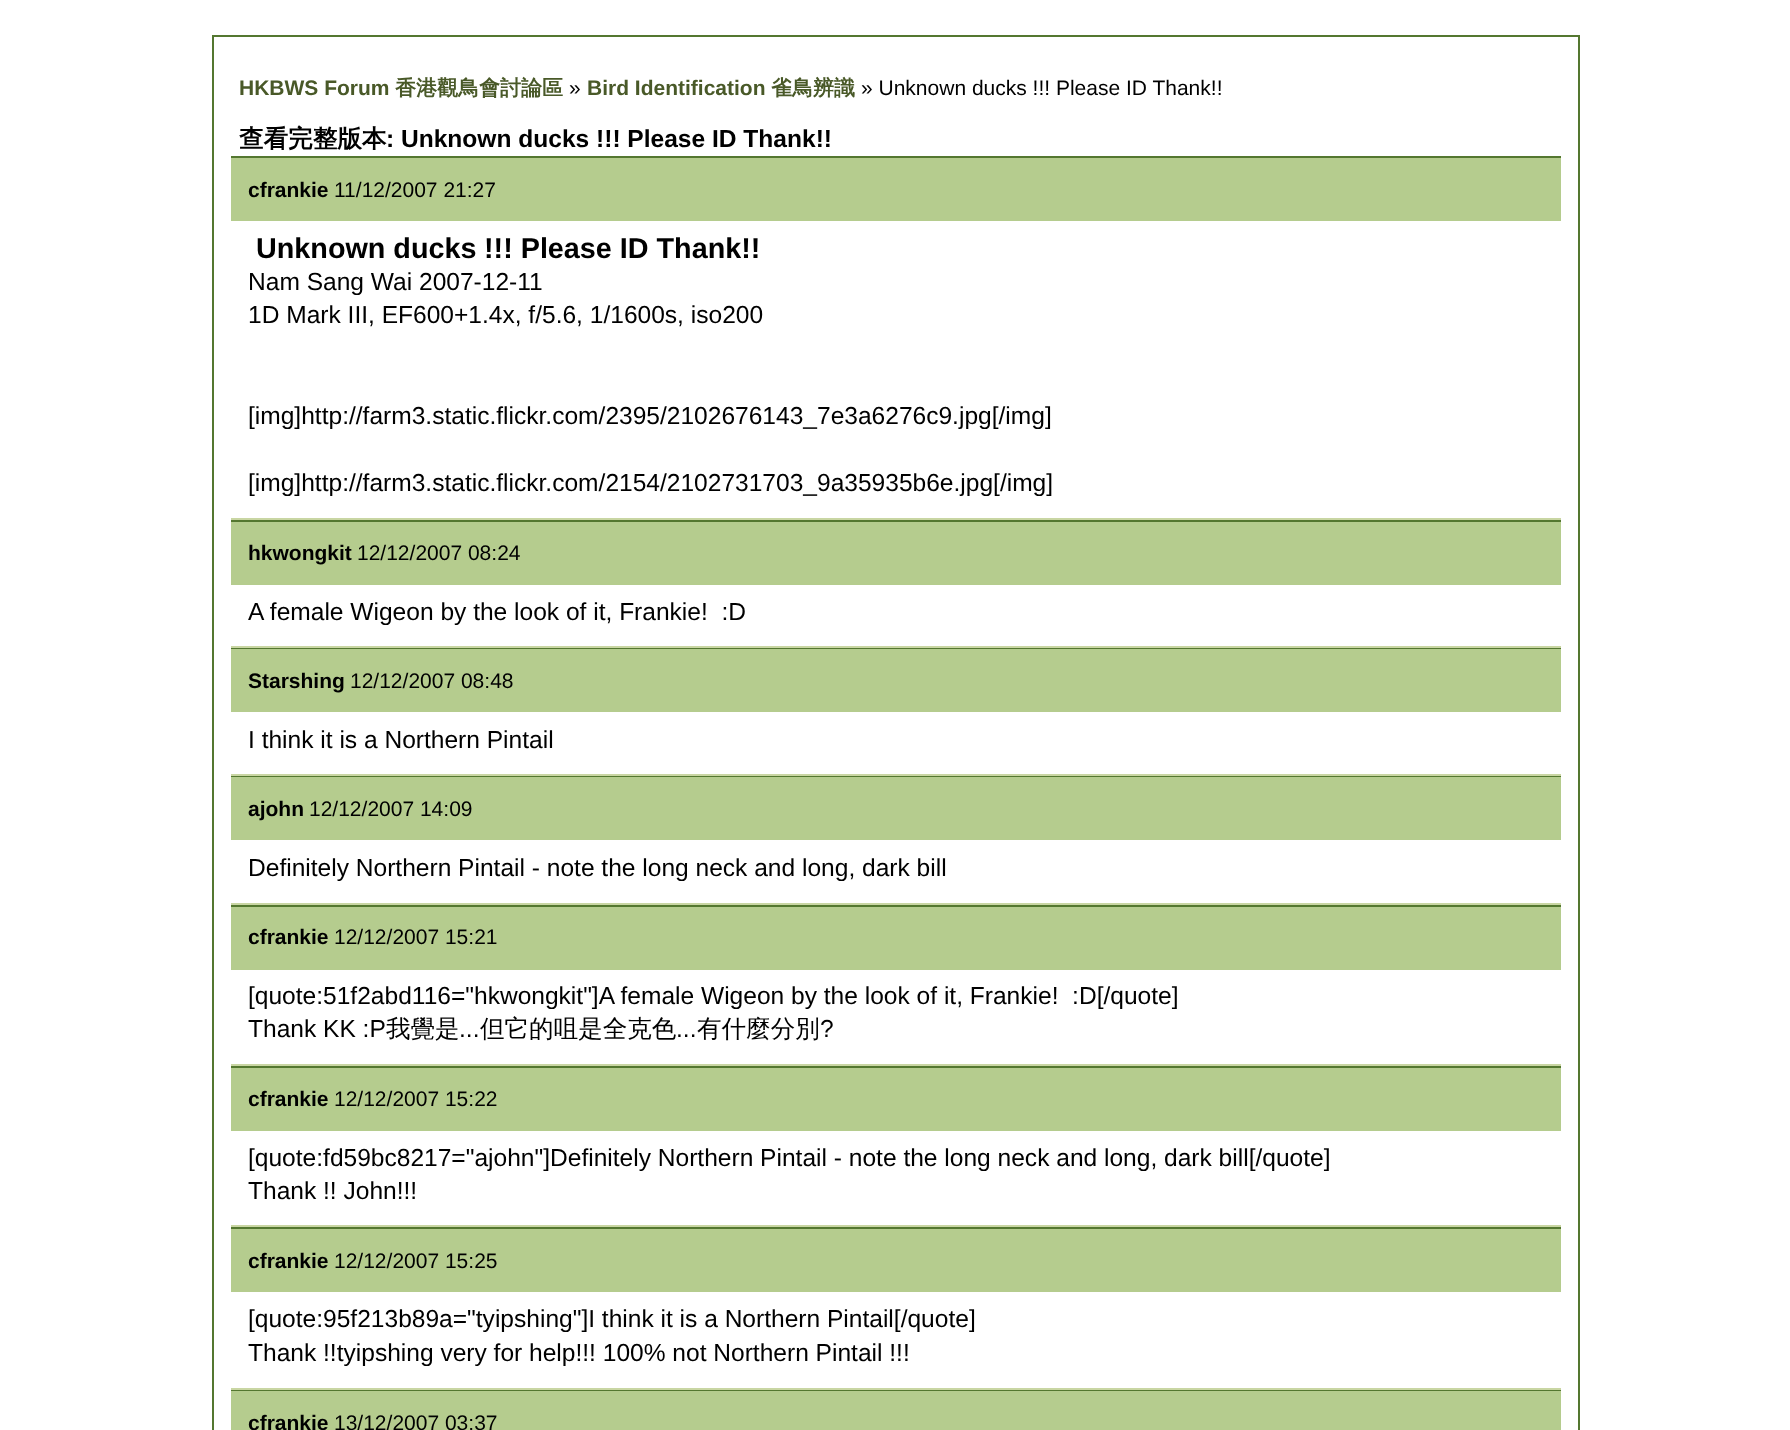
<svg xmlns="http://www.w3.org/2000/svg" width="1790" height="1430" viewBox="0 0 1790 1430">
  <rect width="100%" height="100%" fill="#ffffff"/>
  <rect x="213" y="36" width="1366" height="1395" fill="none" stroke="#547730" stroke-width="2"/>
  <text x="239" y="95" font-family="Liberation Sans" font-size="21" font-weight="bold" fill="#495928">HKBWS Forum</text>
  <text x="395" y="95" font-family="WenQuanYi Zen Hei" font-size="21" font-weight="bold" fill="#495928">香港觀鳥會討論區</text>
  <text x="569" y="95" font-family="Liberation Sans" font-size="21" fill="#000000">»</text>
  <text x="587" y="95" font-family="Liberation Sans" font-size="21" font-weight="bold" fill="#495928">Bird Identification</text>
  <text x="771" y="95" font-family="WenQuanYi Zen Hei" font-size="21" font-weight="bold" fill="#495928">雀鳥辨識</text>
  <text x="861" y="95" font-family="Liberation Sans" font-size="21" fill="#000000">» Unknown ducks !!! Please ID Thank!!</text>
  <text x="239" y="147" font-family="WenQuanYi Zen Hei" font-size="24.55" font-weight="bold" fill="#000000">查看完整版本</text>
  <text x="386" y="147" font-family="Liberation Sans" font-size="24.55" font-weight="bold" fill="#000000">: Unknown ducks !!! Please ID Thank!!</text>
  <rect x="231" y="156" width="1330" height="2" fill="#547730"/>
  <rect x="231" y="158" width="1330" height="63" fill="#b5cc8e"/>
  <text x="248" y="197" font-family="Liberation Sans" font-size="21" font-weight="bold" fill="#000000">cfrankie</text>
  <text x="334" y="197" font-family="Liberation Sans" font-size="21" fill="#000000">11/12/2007 21:27</text>
  <rect x="231" y="518" width="1330" height="2" fill="#c9d6a3"/>
  <text x="256" y="258" font-family="Liberation Sans" font-size="28.75" font-weight="bold" fill="#000000">Unknown ducks</text>
  <text x="484" y="258" font-family="Liberation Sans" font-size="28.75" font-weight="bold" fill="#000000">!!! Please ID Thank!!</text>
  <text x="248" y="290" font-family="Liberation Sans" font-size="24.55" fill="#000000">Nam Sang Wai 2007-12-11</text>
  <text x="248" y="323" font-family="Liberation Sans" font-size="24.55" fill="#000000">1D Mark III, EF600+1.4x, f/5.6, 1/1600s, iso200</text>
  <text x="248" y="424" font-family="Liberation Sans" font-size="24.55" fill="#000000">[img]http://farm3.static.flickr.com/2395/2102676143_7e3a6276c9.jpg[/img]</text>
  <text x="248" y="491" font-family="Liberation Sans" font-size="24.55" fill="#000000">[img]http://farm3.static.flickr.com/2154/2102731703_9a35935b6e.jpg[/img]</text>
  <rect x="231" y="520" width="1330" height="2" fill="#547730"/>
  <rect x="231" y="522" width="1330" height="63" fill="#b5cc8e"/>
  <text x="248" y="560" font-family="Liberation Sans" font-size="21" font-weight="bold" fill="#000000">hkwongkit</text>
  <text x="357" y="560" font-family="Liberation Sans" font-size="21" fill="#000000">12/12/2007 08:24</text>
  <rect x="231" y="646" width="1330" height="2" fill="#c9d6a3"/>
  <text x="248" y="620" font-family="Liberation Sans" font-size="24.55" fill="#000000" xml:space="preserve">A female Wigeon by the look of it, Frankie!  :D</text>
  <rect x="231" y="648" width="1330" height="1" fill="#547730"/>
  <rect x="231" y="649" width="1330" height="63" fill="#b5cc8e"/>
  <text x="248" y="688" font-family="Liberation Sans" font-size="21" font-weight="bold" fill="#000000">Starshing</text>
  <text x="350" y="688" font-family="Liberation Sans" font-size="21" fill="#000000">12/12/2007 08:48</text>
  <rect x="231" y="774" width="1330" height="2" fill="#c9d6a3"/>
  <text x="248" y="748" font-family="Liberation Sans" font-size="24.55" fill="#000000">I think it is a Northern Pintail</text>
  <rect x="231" y="776" width="1330" height="1" fill="#547730"/>
  <rect x="231" y="777" width="1330" height="63" fill="#b5cc8e"/>
  <text x="248" y="816" font-family="Liberation Sans" font-size="21" font-weight="bold" fill="#000000">ajohn</text>
  <text x="309" y="816" font-family="Liberation Sans" font-size="21" fill="#000000">12/12/2007 14:09</text>
  <rect x="231" y="903" width="1330" height="2" fill="#c9d6a3"/>
  <text x="248" y="876" font-family="Liberation Sans" font-size="24.55" fill="#000000">Definitely Northern Pintail - note the long neck and long, dark bill</text>
  <rect x="231" y="905" width="1330" height="2" fill="#547730"/>
  <rect x="231" y="907" width="1330" height="63" fill="#b5cc8e"/>
  <text x="248" y="944" font-family="Liberation Sans" font-size="21" font-weight="bold" fill="#000000">cfrankie</text>
  <text x="334" y="944" font-family="Liberation Sans" font-size="21" fill="#000000">12/12/2007 15:21</text>
  <rect x="231" y="1064" width="1330" height="2" fill="#c9d6a3"/>
  <text x="248" y="1004" font-family="Liberation Sans" font-size="24.55" fill="#000000" xml:space="preserve">[quote:51f2abd116="hkwongkit"]A female Wigeon by the look of it, Frankie!  :D[/quote]</text>
  <text x="248" y="1037" font-family="Liberation Sans" font-size="24.55" fill="#000000">Thank KK :P</text>
  <text x="386" y="1037" font-family="WenQuanYi Zen Hei" font-size="24.55" font-weight="500" fill="#000000">我覺是</text>
  <text x="459" y="1037" font-family="Liberation Sans" font-size="24.55" fill="#000000">...</text>
  <text x="480" y="1037" font-family="WenQuanYi Zen Hei" font-size="24.55" font-weight="500" fill="#000000">但它的咀是全克色</text>
  <text x="676" y="1037" font-family="Liberation Sans" font-size="24.55" fill="#000000">...</text>
  <text x="697" y="1037" font-family="WenQuanYi Zen Hei" font-size="24.55" font-weight="500" fill="#000000">有什麼分別</text>
  <text x="820" y="1037" font-family="Liberation Sans" font-size="24.55" fill="#000000">?</text>
  <rect x="231" y="1066" width="1330" height="2" fill="#547730"/>
  <rect x="231" y="1068" width="1330" height="63" fill="#b5cc8e"/>
  <text x="248" y="1106" font-family="Liberation Sans" font-size="21" font-weight="bold" fill="#000000">cfrankie</text>
  <text x="334" y="1106" font-family="Liberation Sans" font-size="21" fill="#000000">12/12/2007 15:22</text>
  <rect x="231" y="1225" width="1330" height="2" fill="#c9d6a3"/>
  <text x="248" y="1166" font-family="Liberation Sans" font-size="24.55" fill="#000000">[quote:fd59bc8217="ajohn"]Definitely Northern Pintail - note the long neck and long, dark bill[/quote]</text>
  <text x="248" y="1199" font-family="Liberation Sans" font-size="24.55" fill="#000000">Thank !! John!!!</text>
  <rect x="231" y="1227" width="1330" height="2" fill="#547730"/>
  <rect x="231" y="1229" width="1330" height="63" fill="#b5cc8e"/>
  <text x="248" y="1268" font-family="Liberation Sans" font-size="21" font-weight="bold" fill="#000000">cfrankie</text>
  <text x="334" y="1268" font-family="Liberation Sans" font-size="21" fill="#000000">12/12/2007 15:25</text>
  <rect x="231" y="1388" width="1330" height="2" fill="#c9d6a3"/>
  <text x="248" y="1327" font-family="Liberation Sans" font-size="24.55" fill="#000000">[quote:95f213b89a="tyipshing"]I think it is a Northern Pintail[/quote]</text>
  <text x="248" y="1361" font-family="Liberation Sans" font-size="24.55" fill="#000000">Thank !!tyipshing very for help!!! 100% not Northern Pintail !!!</text>
  <rect x="231" y="1390" width="1330" height="1" fill="#547730"/>
  <rect x="231" y="1391" width="1330" height="39" fill="#b5cc8e"/>
  <text x="248" y="1430" font-family="Liberation Sans" font-size="21" font-weight="bold" fill="#000000">cfrankie</text>
  <text x="334" y="1430" font-family="Liberation Sans" font-size="21" fill="#000000">13/12/2007 03:37</text>
</svg>
